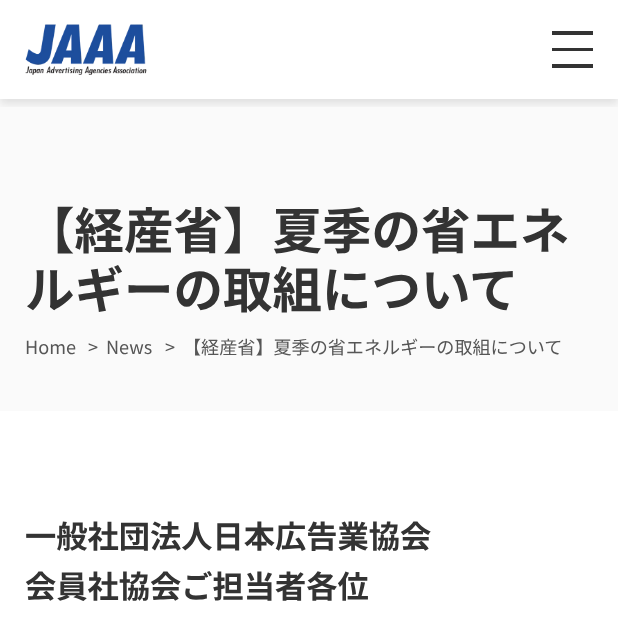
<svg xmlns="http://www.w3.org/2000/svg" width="618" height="643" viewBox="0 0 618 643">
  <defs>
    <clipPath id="clip1"><rect x="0" y="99" width="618" height="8"/></clipPath>
    <filter id="blur1" x="-50%" y="-200%" width="200%" height="500%"><feGaussianBlur stdDeviation="4"/></filter>
  </defs>
  <rect width="100%" height="100%" fill="#ffffff"/>
  <rect x="0" y="99" width="618" height="312" fill="#fafafa"/>
  <g clip-path="url(#clip1)">
    <rect x="0" y="5" width="618" height="99" fill="#000000" fill-opacity="0.1" filter="url(#blur1)"/>
  </g>
  <image x="25" y="24" width="122" height="51" href="img1.png"/>
  <rect x="552" y="31" width="41" height="4" fill="#333333"/>
  <rect x="552" y="48" width="41" height="3" fill="#333333"/>
  <rect x="552" y="64" width="41" height="4" fill="#333333"/>
  <text x="25" y="249" font-family="Noto Sans JP" font-size="49.5" font-weight="bold" fill="#333333">【経産省】夏季の省エネ</text>
  <text x="25" y="308" font-family="Noto Sans JP" font-size="49.5" font-weight="bold" fill="#333333">ルギーの取組について</text>
  <text x="25" y="354" font-family="Noto Sans JP" font-size="18.1" fill="#565656">Home</text>
  <text x="88" y="354" font-family="Noto Sans JP" font-size="18.1" fill="#565656">&gt;</text>
  <text x="106" y="354" font-family="Noto Sans JP" font-size="18.1" fill="#565656">News</text>
  <text x="165" y="354" font-family="Noto Sans JP" font-size="18.1" fill="#565656">&gt;</text>
  <text x="183" y="354" font-family="Noto Sans JP" font-size="18.1" fill="#565656">【経産省】夏季の省エネルギーの取組について</text>
  <text x="25" y="548" font-family="Noto Sans JP" font-size="31.25" font-weight="bold" fill="#333333">一般社団法人日本広告業協会</text>
  <text x="25" y="598" font-family="Noto Sans JP" font-size="31.25" font-weight="bold" fill="#333333">会員社協会ご担当者各位</text>
</svg>
